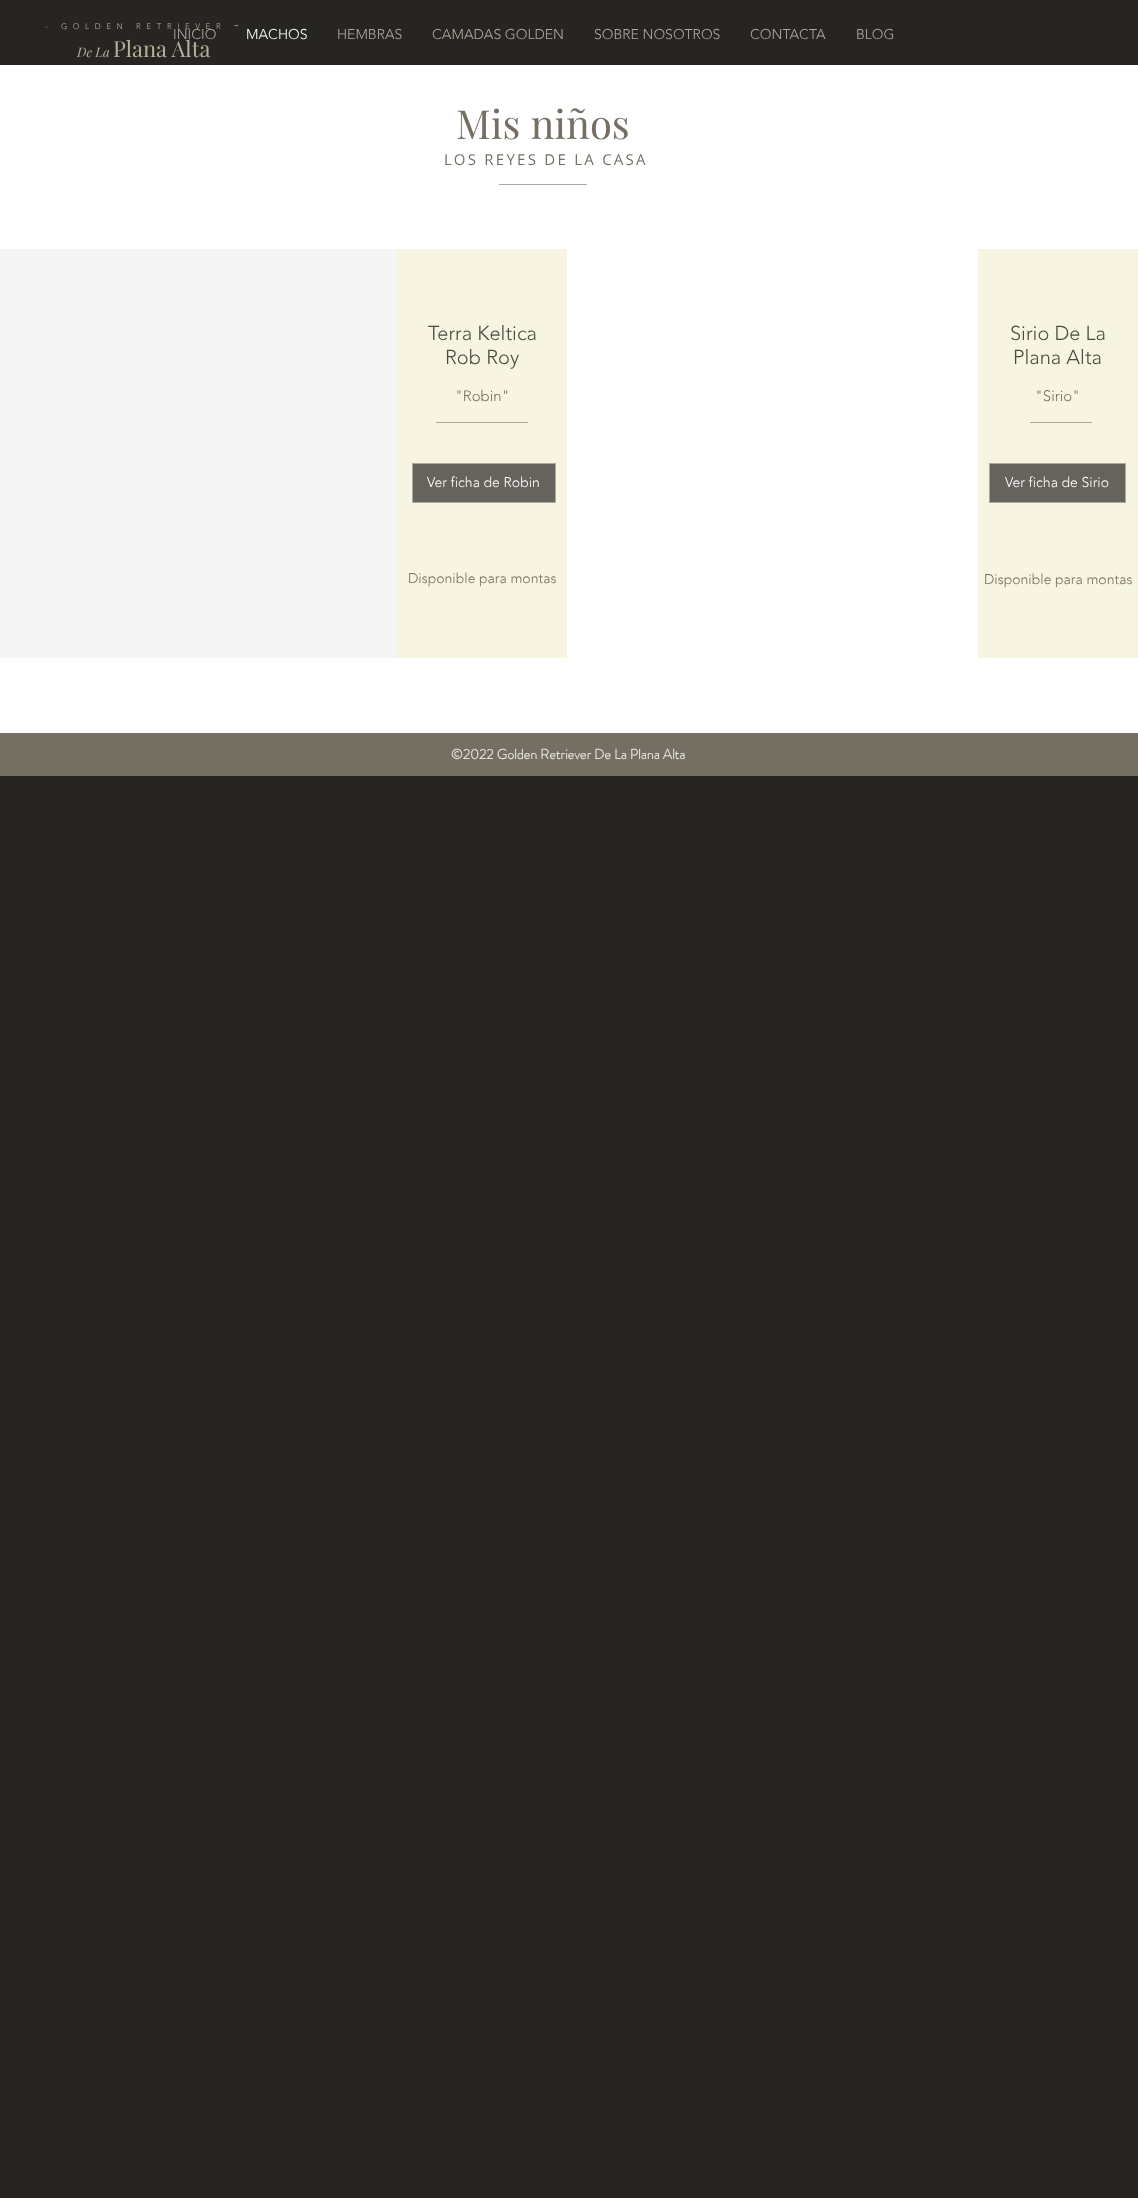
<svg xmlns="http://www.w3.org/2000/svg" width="1138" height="2198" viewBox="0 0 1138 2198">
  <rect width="100%" height="100%" fill="#272521"/>
  <text x="45" y="29" font-family="'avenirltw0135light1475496'" font-size="8" font-weight="300" letter-spacing="5.6" fill="#b6af9b">- GOLDEN RETRIEVER</text>
  <text x="234" y="29" font-family="'avenirltw0135light1475496'" font-size="14" font-weight="300" letter-spacing="5.6" fill="#b6af9b">-</text>
  <text x="77" y="57" font-family="Playfair Display" font-size="13" font-style="italic" fill="#b6af9b">De La</text>
  <text x="113" y="57" font-family="Playfair Display" font-size="22" fill="#b6af9b">Plana Alta</text>
  <text x="173" y="39" font-family="'avenirltw0135light1475496'" font-size="14" font-weight="300" fill="#ada9a0">INICIO</text>
  <text x="246" y="39" font-family="'avenirltw0135light1475496'" font-size="14" font-weight="300" fill="#ffffff">MACHOS</text>
  <text x="337" y="39" font-family="'avenirltw0135light1475496'" font-size="14" font-weight="300" fill="#ada9a0">HEMBRAS</text>
  <text x="432" y="39" font-family="'avenirltw0135light1475496'" font-size="14" font-weight="300" fill="#ada9a0">CAMADAS GOLDEN</text>
  <text x="594" y="39" font-family="'avenirltw0135light1475496'" font-size="14" font-weight="300" fill="#ada9a0">SOBRE NOSOTROS</text>
  <text x="750" y="39" font-family="'avenirltw0135light1475496'" font-size="14" font-weight="300" fill="#ada9a0">CONTACTA</text>
  <text x="856" y="39" font-family="'avenirltw0135light1475496'" font-size="14" font-weight="300" fill="#ada9a0">BLOG</text>
  <rect x="0" y="65" width="1138" height="668" fill="#ffffff"/>
  <text x="456" y="139" font-family="Playfair Display" font-size="40" fill="#756f63">Mis niños</text>
  <text x="444" y="165" font-family="Open Sans" font-size="15" letter-spacing="2.25" fill="#756f63">LOS REYES DE LA CASA</text>
  <rect x="499" y="184" width="88" height="1" fill="#ada9a0"/>
  <rect x="0" y="249" width="397" height="409" fill="#f5f5f5"/>
  <rect x="397" y="249" width="170" height="409" fill="#f7f5e1"/>
  <text x="428" y="340" font-family="'avenirltw0135light1475496'" font-size="20" font-weight="300" fill="#4e4a42">Terra Keltica</text>
  <text x="445" y="364" font-family="'avenirltw0135light1475496'" font-size="20" font-weight="300" fill="#4e4a42">Rob Roy</text>
  <text x="455" y="401" font-family="'avenirltw0135light1475496'" font-size="15" font-weight="300" fill="#756f63">"Robin"</text>
  <rect x="436" y="422" width="92" height="1" fill="#ada9a0"/>
  <rect x="412.5" y="463.5" width="143" height="39" fill="#65635b" stroke="#ada9a0"/>
  <text x="427" y="487" font-family="'avenirltw0135light1475496'" font-size="14" font-weight="300" fill="#ffffff">Ver ficha de Robin</text>
  <text x="408" y="583" font-family="'avenirltw0135light1475496'" font-size="14" font-weight="300" fill="#756f63">Disponible para montas</text>
  <rect x="978" y="249" width="160" height="409" fill="#f7f5e1"/>
  <text x="1010" y="340" font-family="'avenirltw0135light1475496'" font-size="20" font-weight="300" fill="#4e4a42">Sirio De La</text>
  <text x="1013" y="364" font-family="'avenirltw0135light1475496'" font-size="20" font-weight="300" fill="#4e4a42">Plana Alta</text>
  <text x="1035" y="401" font-family="'avenirltw0135light1475496'" font-size="15" font-weight="300" fill="#756f63">"Sirio"</text>
  <rect x="1030" y="422" width="62" height="1" fill="#ada9a0"/>
  <rect x="989.5" y="463.5" width="136" height="39" fill="#65635b" stroke="#ada9a0"/>
  <text x="1005" y="487" font-family="'avenirltw0135light1475496'" font-size="14" font-weight="300" fill="#ffffff">Ver ficha de Sirio</text>
  <text x="984" y="584" font-family="'avenirltw0135light1475496'" font-size="14" font-weight="300" fill="#756f63">Disponible para montas</text>
  <rect x="0" y="733" width="1138" height="43" fill="#756f63"/>
  <text x="451" y="759" font-family="'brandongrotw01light'" font-size="14" font-weight="bold" fill="#e2e1de">©2022 Golden Retriever De La Plana Alta</text>
</svg>
